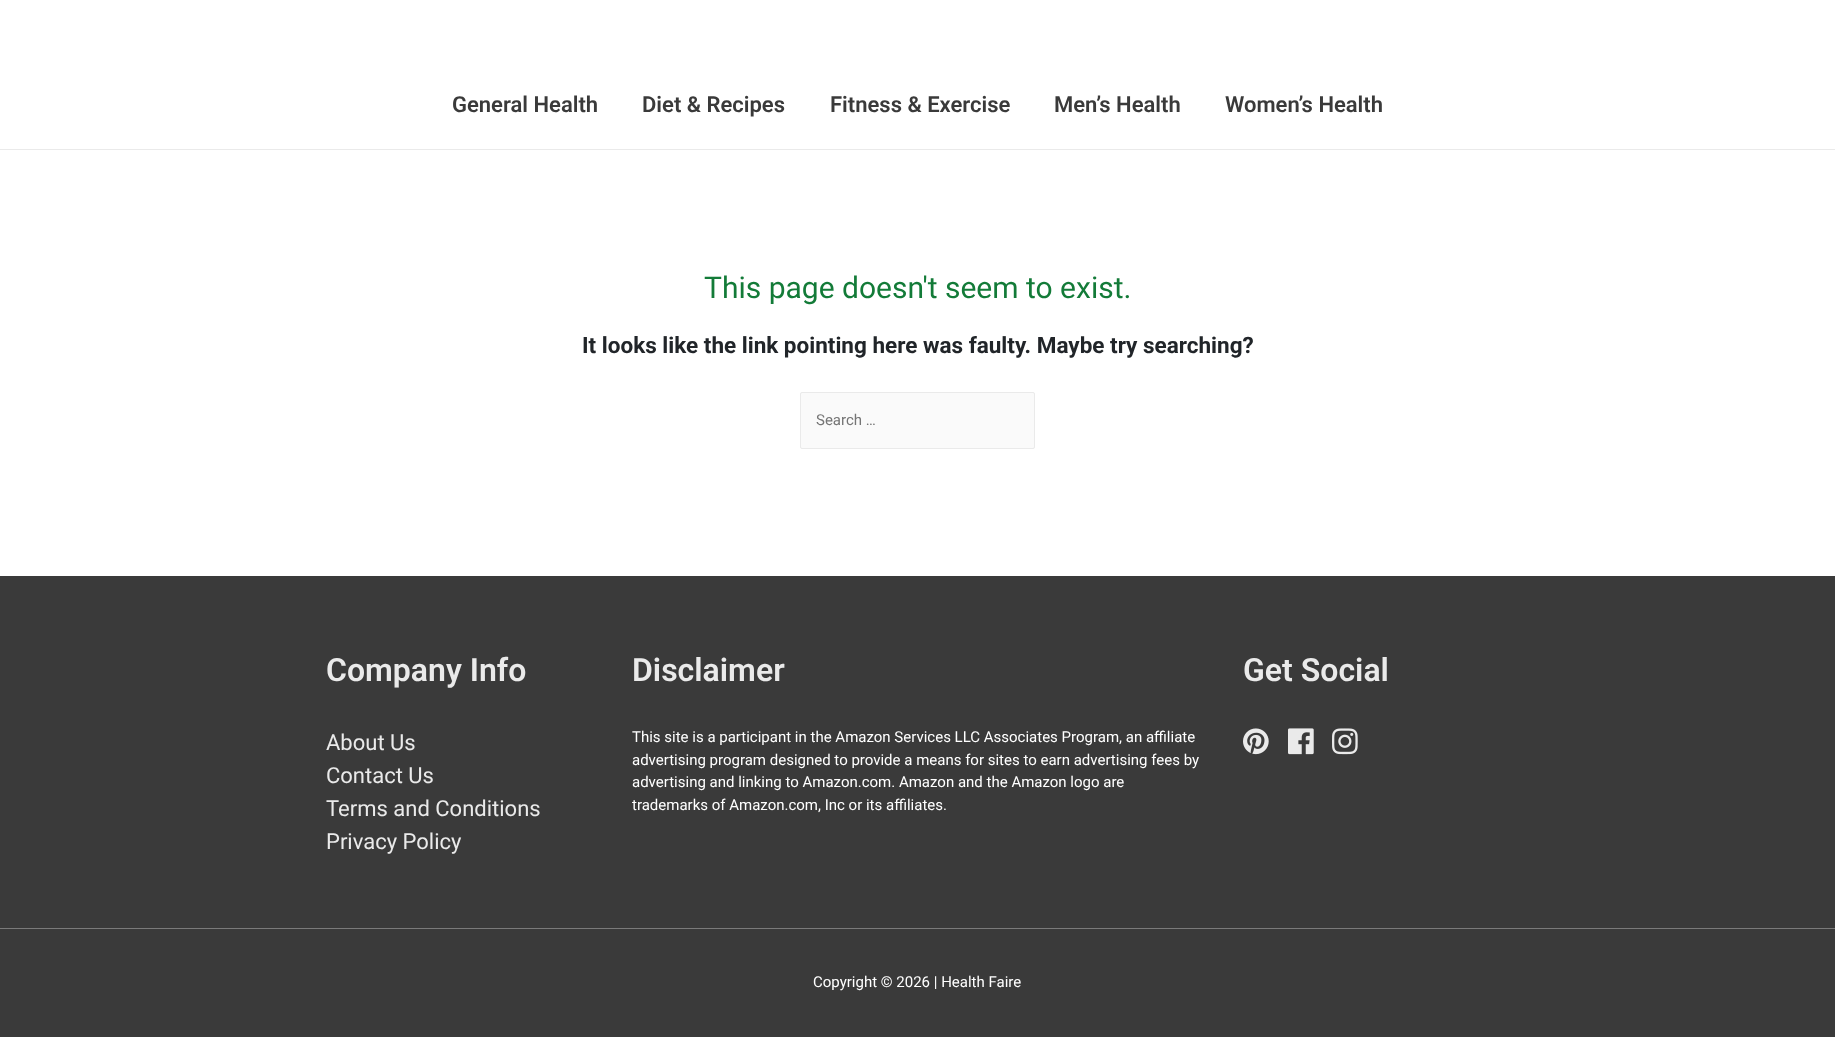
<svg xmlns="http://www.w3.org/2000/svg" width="1835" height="1058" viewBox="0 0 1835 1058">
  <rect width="100%" height="100%" fill="#ffffff"/>
  <rect x="0" y="149" width="1835" height="1" fill="#eaeaea"/>
  <text x="452" y="112" font-family="Roboto" font-size="22" font-weight="600" fill="#3a3a3a">General Health</text>
  <text x="642" y="112" font-family="Roboto" font-size="22" font-weight="600" fill="#3a3a3a">Diet &amp; Recipes</text>
  <text x="830" y="112" font-family="Roboto" font-size="22" font-weight="600" fill="#3a3a3a">Fitness &amp; Exercise</text>
  <text x="1054" y="112" font-family="Roboto" font-size="22" font-weight="600" fill="#3a3a3a">Men’s Health</text>
  <text x="1225" y="112" font-family="Roboto" font-size="22" font-weight="600" fill="#3a3a3a">Women’s Health</text>
  <text x="704" y="298" font-family="Roboto" font-size="30" fill="#137b38">This page doesn't seem to exist.</text>
  <text x="582" y="353" font-family="Roboto" font-size="22.5" font-weight="bold" fill="#212529">It looks like the link pointing here was faulty. Maybe try searching?</text>
  <rect x="800.5" y="392.5" width="234" height="56" rx="1.5" fill="#fafafa" stroke="#eaeaea"/>
  <text x="816" y="425" font-family="Roboto" font-size="15" fill="#757575">Search …</text>
  <rect x="0" y="576" width="1835" height="352" fill="#3a3a3a"/>
  <text x="326" y="681" font-family="Roboto" font-size="32" font-weight="600" fill="#eaeaea">Company Info</text>
  <text x="326" y="750" font-family="Roboto" font-size="22" fill="#eaeaea">About Us</text>
  <text x="326" y="783" font-family="Roboto" font-size="22" fill="#eaeaea">Contact Us</text>
  <text x="326" y="816" font-family="Roboto" font-size="22" fill="#eaeaea">Terms and Conditions</text>
  <text x="326" y="849" font-family="Roboto" font-size="22" fill="#eaeaea">Privacy Policy</text>
  <text x="632" y="681" font-family="Roboto" font-size="32" font-weight="600" fill="#eaeaea">Disclaimer</text>
  <text x="632" y="742" font-family="Roboto" font-size="15" fill="#ffffff">This site is a participant in the Amazon Services LLC Associates Program, an affiliate</text>
  <text x="632" y="765" font-family="Roboto" font-size="15" fill="#ffffff">advertising program designed to provide a means for sites to earn advertising fees by</text>
  <text x="632" y="787" font-family="Roboto" font-size="15" fill="#ffffff">advertising and linking to Amazon.com. Amazon and the Amazon logo are</text>
  <text x="632" y="810" font-family="Roboto" font-size="15" fill="#ffffff">trademarks of Amazon.com, Inc or its affiliates.</text>
  <text x="1243" y="681" font-family="Roboto" font-size="32" font-weight="600" fill="#eaeaea">Get Social</text>
  <image x="1243" y="728" width="26" height="27" href="img1.png"/>
  <image x="1288" y="728" width="26" height="27" href="img2.png"/>
  <image x="1332" y="728" width="26" height="27" href="img3.png"/>
  <rect x="0" y="928" width="1835" height="1" fill="#7a7a7a"/>
  <rect x="0" y="929" width="1835" height="108" fill="#3a3a3a"/>
  <text x="813" y="987" font-family="Roboto" font-size="15" fill="#ffffff">Copyright © 2026 | Health Faire</text>
</svg>
